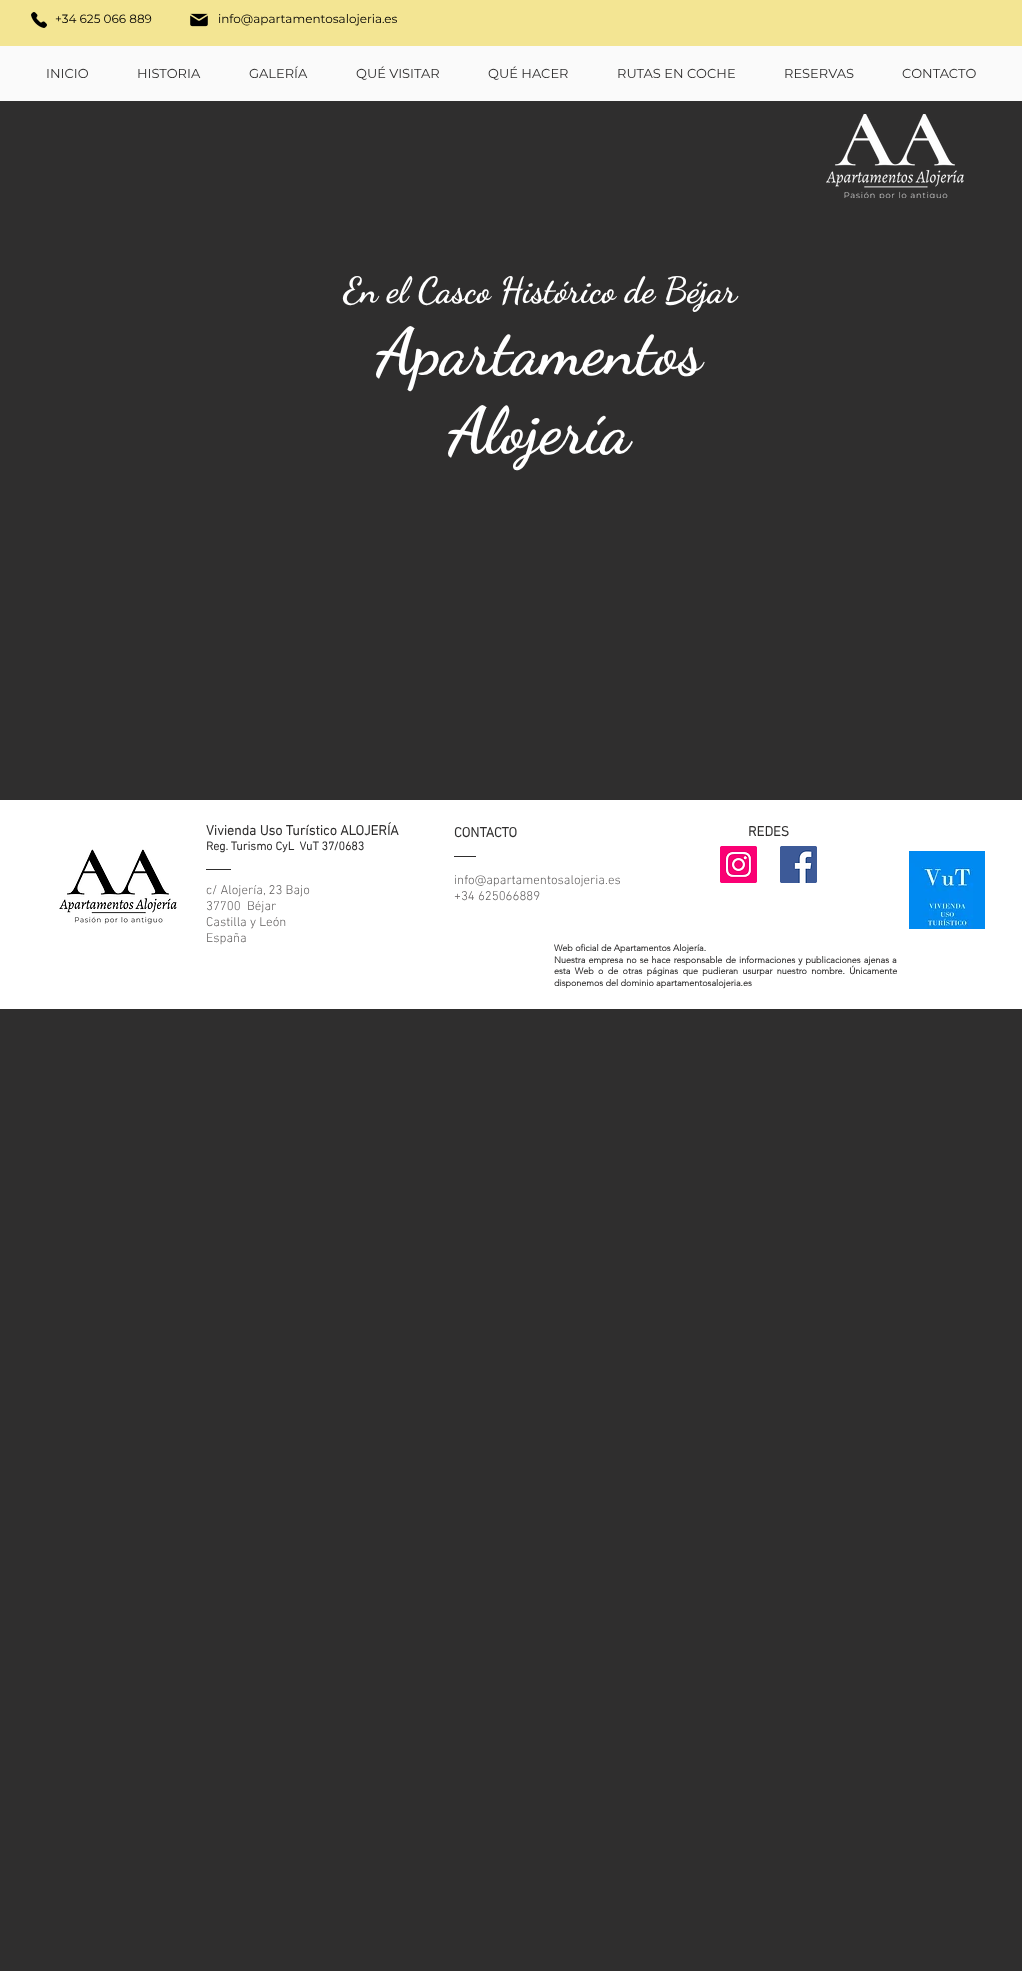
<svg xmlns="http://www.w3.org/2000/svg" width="1022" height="1971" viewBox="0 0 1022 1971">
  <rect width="100%" height="100%" fill="#2f2e2e"/>
  <rect x="0" y="0" width="1022" height="46" fill="#f3e593"/>
  <image x="31" y="12" width="16" height="16" href="img1.png"/>
  <text x="55" y="23" font-family="Montserrat" font-size="12" fill="#000000">+34 625 066 889</text>
  <image x="190" y="13" width="18" height="14" href="img2.png"/>
  <text x="218" y="23" font-family="Montserrat" font-size="12" fill="#000000">info@apartamentosalojeria.es</text>
  <rect x="0" y="46" width="1022" height="55" fill="#fafafa"/>
  <text x="46" y="78" font-family="Montserrat" font-size="13" fill="#2f2e2e">INICIO</text>
  <text x="137" y="78" font-family="Montserrat" font-size="13" fill="#2f2e2e">HISTORIA</text>
  <text x="249" y="78" font-family="Montserrat" font-size="13" fill="#2f2e2e">GALERÍA</text>
  <text x="356" y="78" font-family="Montserrat" font-size="13" fill="#2f2e2e">QUÉ VISITAR</text>
  <text x="488" y="78" font-family="Montserrat" font-size="13" fill="#2f2e2e">QUÉ HACER</text>
  <text x="617" y="78" font-family="Montserrat" font-size="13" fill="#2f2e2e">RUTAS EN COCHE</text>
  <text x="784" y="78" font-family="Montserrat" font-size="13" fill="#2f2e2e">RESERVAS</text>
  <text x="902" y="78" font-family="Montserrat" font-size="13" fill="#2f2e2e">CONTACTO</text>
  <image x="826" y="114" width="138" height="84" href="img3.png"/>
  <text x="343" y="302" font-family="Dancing Script" font-size="36" font-weight="bold" fill="#ffffff">En el Casco Histórico de Béjar</text>
  <text x="376" y="373" font-family="Dancing Script" font-size="65" font-weight="bold" fill="#ffffff">Apartamentos</text>
  <text x="448" y="452" font-family="Dancing Script" font-size="65" font-weight="bold" fill="#ffffff">Alojería</text>
  <rect x="0" y="800" width="1022" height="209" fill="#ffffff"/>
  <text x="206" y="835" font-family="'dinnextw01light'" font-size="14" font-weight="bold" fill="#2f2e2e">Vivienda Uso Turístico ALOJERÍA</text>
  <text x="206" y="850" font-family="'dinnextw01light'" font-size="12" font-weight="bold" fill="#2f2e2e" xml:space="preserve">Reg. Turismo CyL  VuT 37/0683</text>
  <text x="454" y="837" font-family="'dinnextw01light'" font-size="14" font-weight="bold" fill="#2f2e2e">CONTACTO</text>
  <text x="748" y="836" font-family="'dinnextw01light'" font-size="14" font-weight="bold" fill="#2f2e2e">REDES</text>
  <image x="59" y="849" width="119" height="75" href="img4.png"/>
  <rect x="454" y="856" width="22" height="1" fill="#2f2e2e"/>
  <image x="720" y="846" width="37" height="37" href="img5.png"/>
  <image x="780" y="846" width="37" height="37" href="img6.png"/>
  <image x="909" y="851" width="76" height="78" href="img7.png"/>
  <rect x="206" y="869" width="25" height="1" fill="#2f2e2e"/>
  <text x="206" y="894" font-family="'dinnextw01light'" font-size="13" font-weight="300" fill="#605e5e">c/ Alojería, 23 Bajo</text>
  <text x="206" y="910" font-family="'dinnextw01light'" font-size="13" font-weight="300" fill="#605e5e" xml:space="preserve">37700  Béjar</text>
  <text x="206" y="926" font-family="'dinnextw01light'" font-size="13" font-weight="300" fill="#605e5e">Castilla y León</text>
  <text x="206" y="942" font-family="'dinnextw01light'" font-size="13" font-weight="300" fill="#605e5e">España</text>
  <text x="454" y="884" font-family="'dinnextw01light'" font-size="13" font-weight="300" fill="#605e5e">info@apartamentosalojeria.es</text>
  <text x="454" y="900" font-family="'dinnextw01light'" font-size="13" font-weight="300" fill="#605e5e">+34 625066889</text>
  <text x="554" y="951" font-family="'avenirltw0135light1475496'" font-size="9" font-weight="bold" fill="#2f2e2e">Web oficial de Apartamentos Alojería.</text>
  <text x="554" y="963" word-spacing="0.75" font-family="'avenirltw0135light1475496'" font-size="9" font-weight="bold" fill="#2f2e2e">Nuestra empresa no se hace responsable de informaciones y publicaciones ajenas a</text>
  <text x="554" y="974" word-spacing="2" font-family="'avenirltw0135light1475496'" font-size="9" font-weight="bold" fill="#2f2e2e">esta Web o de otras páginas que pudieran usurpar nuestro nombre. Únicamente</text>
  <text x="554" y="986" font-family="'avenirltw0135light1475496'" font-size="9" font-weight="bold" fill="#2f2e2e">disponemos del dominio apartamentosalojeria.es</text>
</svg>
